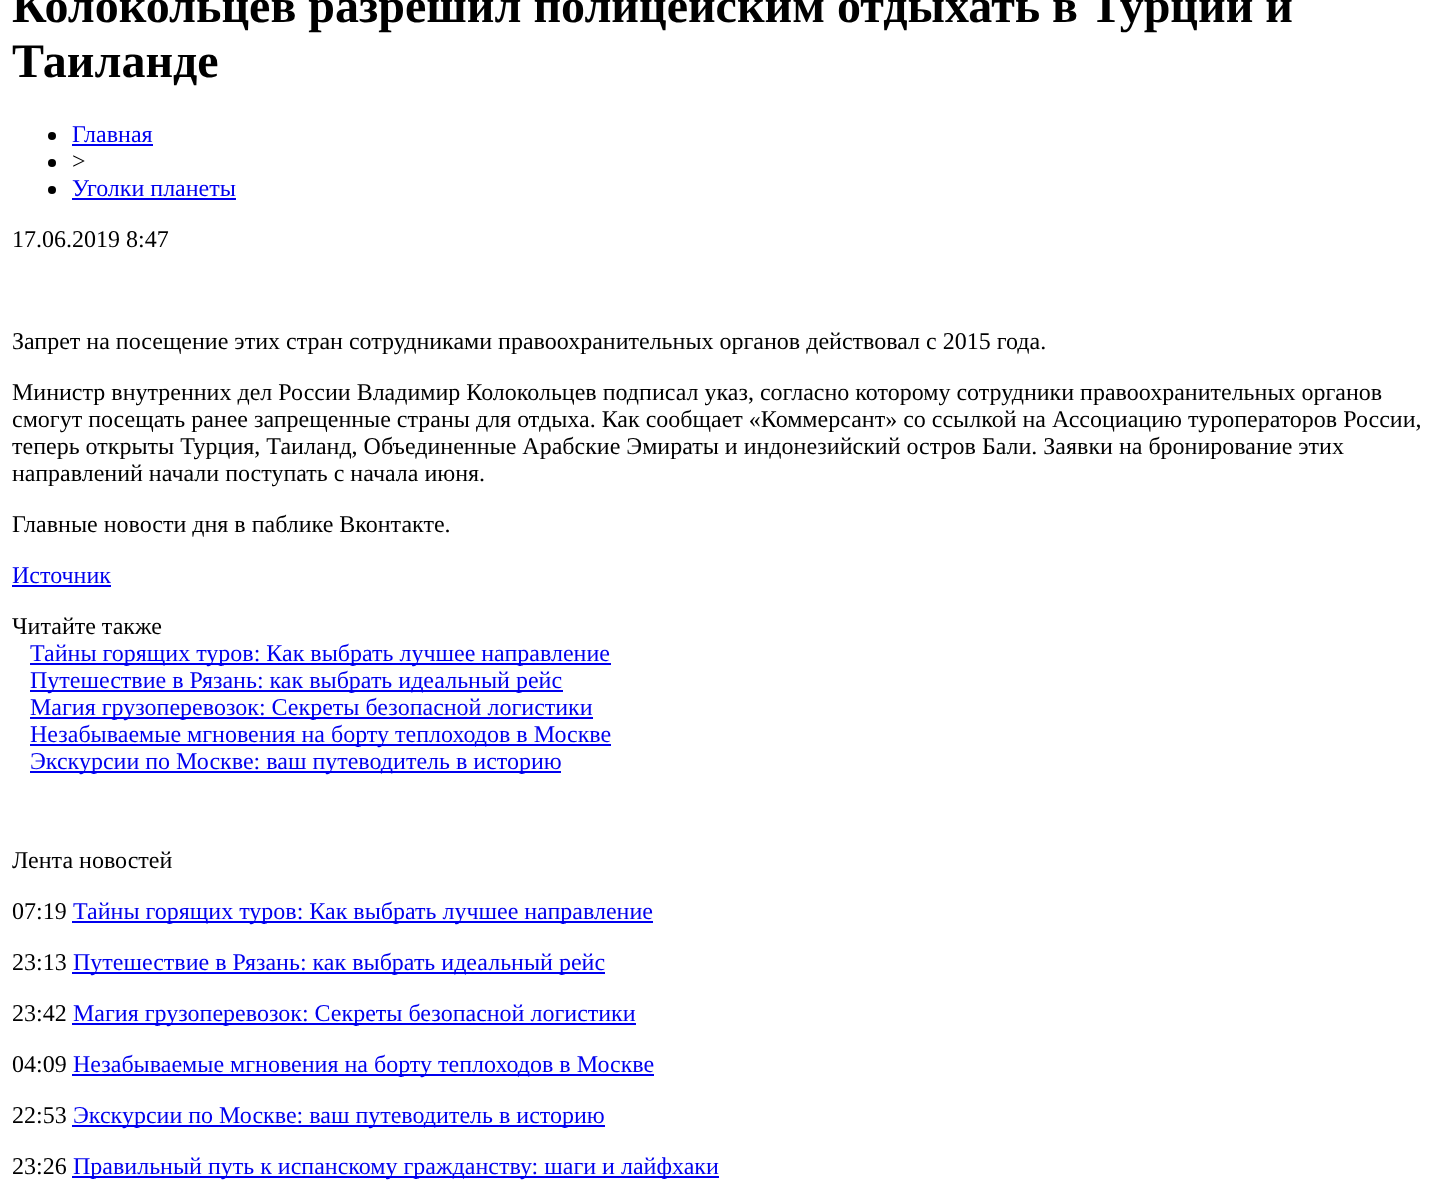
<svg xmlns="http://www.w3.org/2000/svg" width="1440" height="1180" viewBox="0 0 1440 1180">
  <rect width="100%" height="100%" fill="#ffffff"/>
  <text x="12" y="22" font-family="Liberation Serif" font-size="48" font-weight="bold" fill="#000000">Колокольцев разрешил полицейским отдыхать в Турции и</text>
  <text x="12" y="77" font-family="Liberation Serif" font-size="48" font-weight="bold" fill="#000000">Таиланде</text>
  <circle cx="52" cy="136" r="4" fill="#000000"/>
  <text x="72" y="142" font-family="Liberation Serif" font-size="24" fill="#0000ee">Главная</text>
  <rect x="72" y="144" width="81" height="2" fill="#0000ee"/>
  <circle cx="52" cy="163" r="4" fill="#000000"/>
  <text x="72" y="169" font-family="Liberation Serif" font-size="24" fill="#000000">&gt;</text>
  <circle cx="52" cy="190" r="4" fill="#000000"/>
  <text x="72" y="196" font-family="Liberation Serif" font-size="24" fill="#0000ee">Уголки планеты</text>
  <rect x="72" y="198" width="164" height="2" fill="#0000ee"/>
  <text x="12" y="247" font-family="Liberation Serif" font-size="24" fill="#000000">17.06.2019 8:47</text>
  <text x="12" y="349" font-family="Liberation Serif" font-size="24" fill="#000000">Запрет на посещение этих стран сотрудниками правоохранительных органов действовал с 2015 года.</text>
  <text x="12" y="400" font-family="Liberation Serif" font-size="24" fill="#000000">Министр внутренних дел России Владимир Колокольцев подписал указ, согласно которому сотрудники правоохранительных органов</text>
  <text x="12" y="427" font-family="Liberation Serif" font-size="24" fill="#000000">смогут посещать ранее запрещенные страны для отдыха. Как сообщает «Коммерсант» со ссылкой на Ассоциацию туроператоров России,</text>
  <text x="12" y="454" font-family="Liberation Serif" font-size="24" fill="#000000">теперь открыты Турция, Таиланд, Объединенные Арабские Эмираты и индонезийский остров Бали. Заявки на бронирование этих</text>
  <text x="12" y="481" font-family="Liberation Serif" font-size="24" fill="#000000">направлений начали поступать с начала июня.</text>
  <text x="12" y="532" font-family="Liberation Serif" font-size="24" fill="#000000">Главные новости дня в паблике Вконтакте.</text>
  <text x="12" y="583" font-family="Liberation Serif" font-size="24" fill="#0000ee">Источник</text>
  <rect x="12" y="585" width="99" height="2" fill="#0000ee"/>
  <text x="12" y="634" font-family="Liberation Serif" font-size="24" fill="#000000">Читайте также</text>
  <rect x="30" y="663" width="581" height="2" fill="#0000ee"/>
  <text x="30" y="661" font-family="Liberation Serif" font-size="24" fill="#0000ee">Тайны горящих туров: Как выбрать лучшее направление</text>
  <rect x="30" y="690" width="533" height="2" fill="#0000ee"/>
  <text x="30" y="688" font-family="Liberation Serif" font-size="24" fill="#0000ee">Путешествие в Рязань: как выбрать идеальный рейс</text>
  <rect x="30" y="717" width="563" height="2" fill="#0000ee"/>
  <text x="30" y="715" font-family="Liberation Serif" font-size="24" fill="#0000ee">Магия грузоперевозок: Секреты безопасной логистики</text>
  <rect x="30" y="744" width="581" height="2" fill="#0000ee"/>
  <text x="30" y="742" font-family="Liberation Serif" font-size="24" fill="#0000ee">Незабываемые мгновения на борту теплоходов в Москве</text>
  <rect x="30" y="771" width="531" height="2" fill="#0000ee"/>
  <text x="30" y="769" font-family="Liberation Serif" font-size="24" fill="#0000ee">Экскурсии по Москве: ваш путеводитель в историю</text>
  <text x="12" y="868" font-family="Liberation Serif" font-size="24" fill="#000000">Лента новостей</text>
  <text x="12" y="919" font-family="Liberation Serif" font-size="24" fill="#000000">07:19</text>
  <rect x="72" y="921" width="581" height="2" fill="#0000ee"/>
  <text x="73" y="919" font-family="Liberation Serif" font-size="24" fill="#0000ee">Тайны горящих туров: Как выбрать лучшее направление</text>
  <text x="12" y="970" font-family="Liberation Serif" font-size="24" fill="#000000">23:13</text>
  <rect x="72" y="972" width="533" height="2" fill="#0000ee"/>
  <text x="73" y="970" font-family="Liberation Serif" font-size="24" fill="#0000ee">Путешествие в Рязань: как выбрать идеальный рейс</text>
  <text x="12" y="1021" font-family="Liberation Serif" font-size="24" fill="#000000">23:42</text>
  <rect x="72" y="1023" width="564" height="2" fill="#0000ee"/>
  <text x="73" y="1021" font-family="Liberation Serif" font-size="24" fill="#0000ee">Магия грузоперевозок: Секреты безопасной логистики</text>
  <text x="12" y="1072" font-family="Liberation Serif" font-size="24" fill="#000000">04:09</text>
  <rect x="72" y="1074" width="582" height="2" fill="#0000ee"/>
  <text x="73" y="1072" font-family="Liberation Serif" font-size="24" fill="#0000ee">Незабываемые мгновения на борту теплоходов в Москве</text>
  <text x="12" y="1123" font-family="Liberation Serif" font-size="24" fill="#000000">22:53</text>
  <rect x="72" y="1125" width="533" height="2" fill="#0000ee"/>
  <text x="73" y="1123" font-family="Liberation Serif" font-size="24" fill="#0000ee">Экскурсии по Москве: ваш путеводитель в историю</text>
  <text x="12" y="1174" font-family="Liberation Serif" font-size="24" fill="#000000">23:26</text>
  <rect x="72" y="1176" width="647" height="2" fill="#0000ee"/>
  <text x="73" y="1174" font-family="Liberation Serif" font-size="24" fill="#0000ee">Правильный путь к испанскому гражданству: шаги и лайфхаки</text>
</svg>
